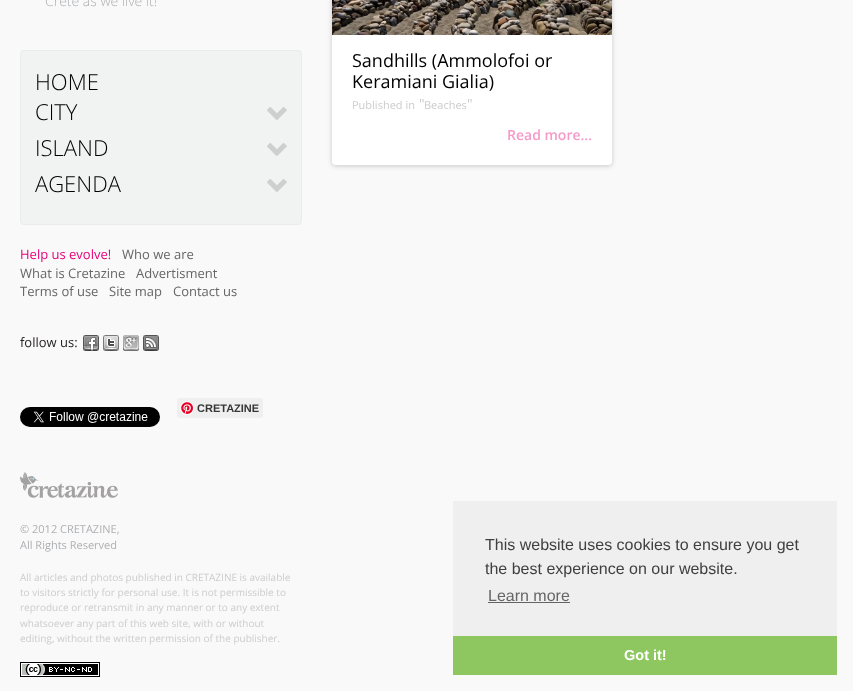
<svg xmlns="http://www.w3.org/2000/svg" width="853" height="691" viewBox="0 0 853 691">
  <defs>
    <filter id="blur1" x="-50%" y="-200%" width="200%" height="500%"><feGaussianBlur stdDeviation="2.5"/></filter>
  </defs>
  <rect width="100%" height="100%" fill="#f9f9f9"/>
  <text x="45" y="6" font-family="Open Sans" font-size="14" font-weight="300" fill="#adafb2">Crete as we live it!</text>
  <rect x="20" y="50" width="282" height="175" rx="4" fill="#f1f2f2"/>
  <rect x="20.5" y="50.5" width="281" height="174" rx="3.5" fill="none" stroke="#adafb2" stroke-opacity="0.1"/>
  <text x="35" y="90" font-family="Open Sans" font-size="22" font-weight="300" fill="#000000">HOME</text>
  <text x="35" y="120" font-family="Open Sans" font-size="22" font-weight="300" fill="#000000">CITY</text>
  <image x="267" y="107" width="20" height="13" href="img1.png"/>
  <text x="35" y="156" font-family="Open Sans" font-size="22" font-weight="300" fill="#000000">ISLAND</text>
  <image x="267" y="143" width="20" height="13" href="img1.png"/>
  <text x="35" y="192" font-family="Open Sans" font-size="22" font-weight="300" fill="#000000">AGENDA</text>
  <image x="267" y="179" width="20" height="13" href="img1.png"/>
  <text x="20" y="259" font-family="Open Sans" font-size="13" fill="#e50278">Help us evolve!</text>
  <text x="122" y="259" font-family="Open Sans" font-size="13" fill="#666666">Who we are</text>
  <text x="20" y="278" font-family="Open Sans" font-size="13" fill="#666666">What is Cretazine</text>
  <text x="136" y="278" font-family="Open Sans" font-size="13" fill="#666666">Advertisment</text>
  <text x="20" y="296" font-family="Open Sans" font-size="13" fill="#666666">Terms of use</text>
  <text x="109" y="296" font-family="Open Sans" font-size="13" fill="#666666">Site map</text>
  <text x="173" y="296" font-family="Open Sans" font-size="13" fill="#666666">Contact us</text>
  <text x="20" y="347" font-family="Open Sans" font-size="13" fill="#231f20">follow us:</text>
  <image x="83" y="335" width="16" height="16" href="img2.png"/>
  <image x="103" y="335" width="16" height="16" href="img3.png"/>
  <image x="123" y="335" width="16" height="16" href="img4.png"/>
  <image x="143" y="335" width="16" height="16" href="img5.png"/>
  <image x="20" y="407" width="140" height="20" href="img6.png"/>
  <rect x="177" y="398" width="86" height="20" rx="3" fill="#efefef"/>
  <image x="180" y="401" width="14" height="14" href="img7.png"/>
  <text x="197" y="412" font-family="Liberation Sans" font-size="11" font-weight="bold" fill="#363636">CRETAZINE</text>
  <image x="20" y="472" width="98" height="26" href="img8.png"/>
  <text x="20" y="533" font-family="Open Sans" font-size="11" fill="#adafb2">© 2012 CRETAZINE,</text>
  <text x="20" y="549" font-family="Open Sans" font-size="11" fill="#adafb2">All Rights Reserved</text>
  <text x="20" y="581" font-family="Open Sans" font-size="10" fill="#cccccc">All articles and photos published in CRETAZINE is available</text>
  <text x="20" y="596" font-family="Open Sans" font-size="10" fill="#cccccc">to visitors strictly for personal use. It is not permissible to</text>
  <text x="20" y="611" font-family="Open Sans" font-size="10" fill="#cccccc">reproduce or retransmit in any manner or to any extent</text>
  <text x="20" y="627" font-family="Open Sans" font-size="10" fill="#cccccc">whatsoever any part of this web site, with or without</text>
  <text x="20" y="642" font-family="Open Sans" font-size="10" fill="#cccccc">editing, without the written permission of the publisher.</text>
  <image x="20" y="662" width="80" height="15" href="img9.png"/>
  <rect x="332" y="-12" width="280" height="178" rx="4" fill="#000000" fill-opacity="0.2" filter="url(#blur1)"/>
  <rect x="332" y="-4" width="280" height="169" rx="4" fill="#ffffff"/>
  <image x="332" y="0" width="280" height="35" href="img10.png"/>
  <text x="352" y="67" font-family="Open Sans" font-size="18" fill="#000000">Sandhills (Ammolofoi or</text>
  <text x="352" y="88" font-family="Open Sans" font-size="18" fill="#000000">Keramiani Gialia)</text>
  <text x="352" y="109" font-family="Open Sans" font-size="11" fill="#cccccc">Published in</text>
  <text x="419" y="109" font-family="Open Sans" font-size="14" fill="#cccccc">"</text>
  <text x="424" y="109" font-family="Open Sans" font-size="11" fill="#cccccc">Beaches</text>
  <text x="467" y="109" font-family="Open Sans" font-size="14" fill="#cccccc">"</text>
  <text x="507" y="140" font-family="Open Sans" font-size="14" font-weight="600" fill="#f59ac9">Read more...</text>
  <rect x="453" y="501" width="384" height="135" fill="#efefef"/>
  <text x="485" y="550" font-family="Liberation Sans" font-size="16" fill="#404040">This website uses cookies to ensure you get</text>
  <text x="485" y="574" font-family="Liberation Sans" font-size="16" fill="#404040">the best experience on our website.</text>
  <text x="488" y="601" font-family="Liberation Sans" font-size="16" fill="#666666">Learn more</text>
  <rect x="488" y="602" width="82" height="1" fill="#636363"/>
  <rect x="453" y="636" width="384" height="39" fill="#8ec760"/>
  <text x="624" y="660" font-family="Liberation Sans" font-size="14.5" font-weight="bold" fill="#ffffff">Got it!</text>
</svg>
